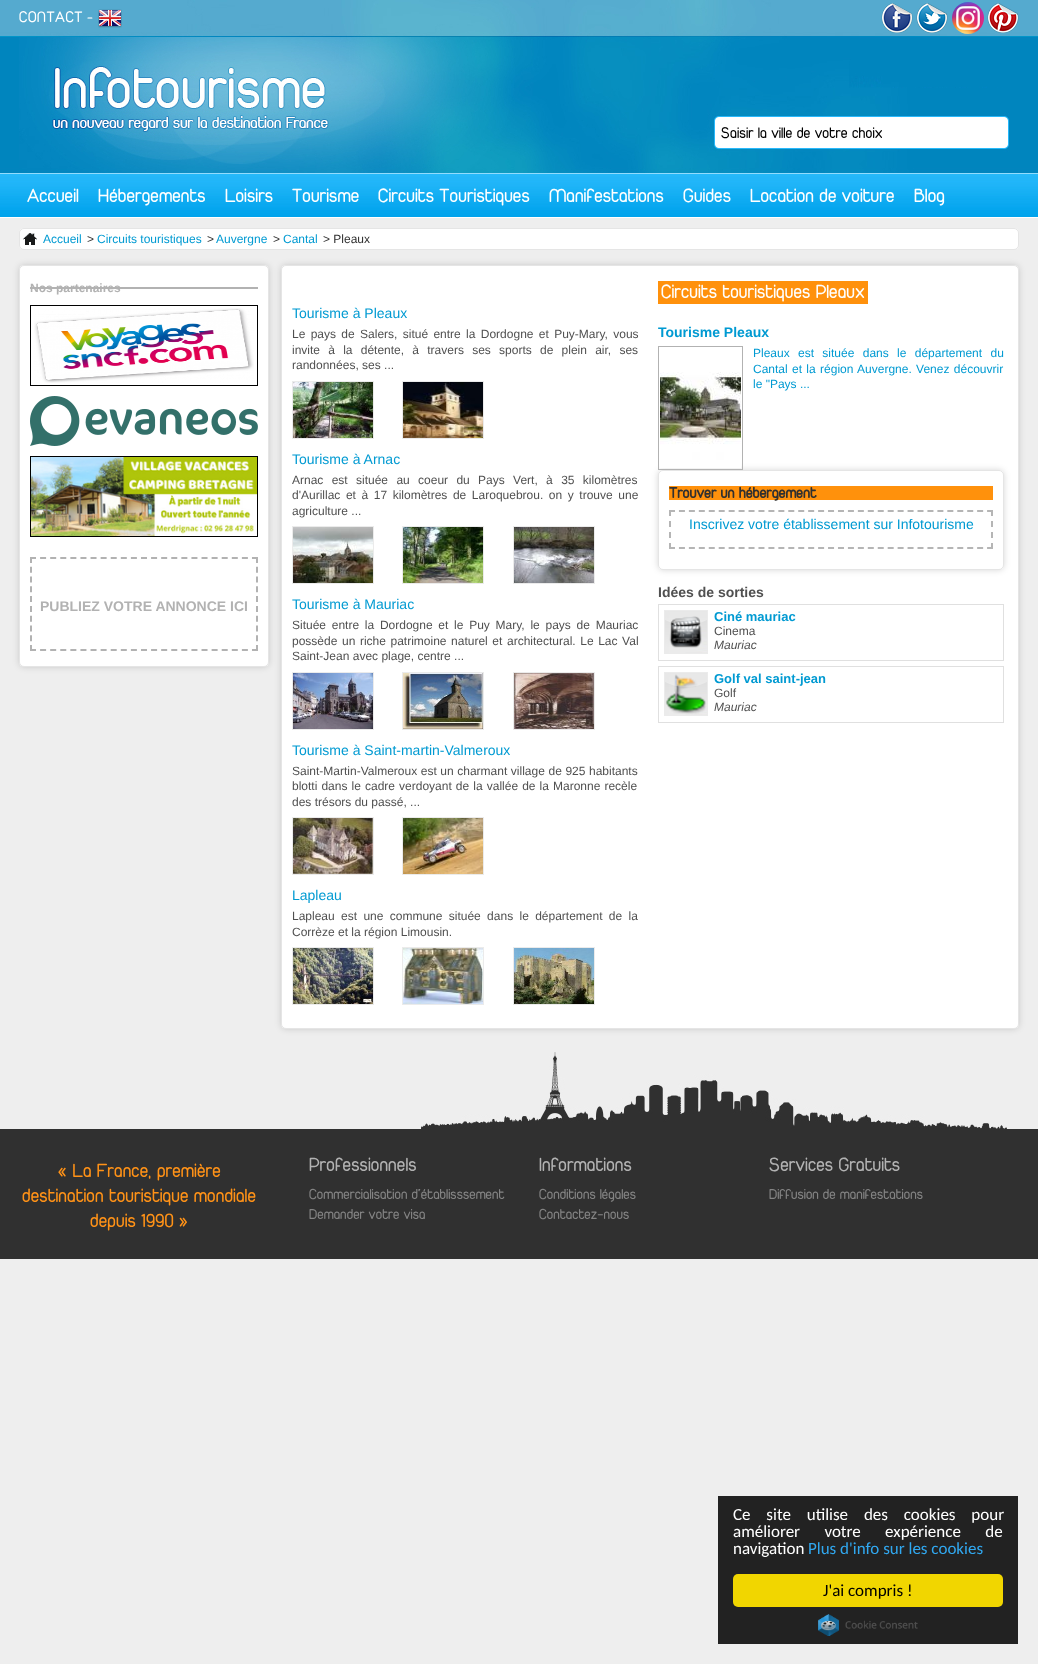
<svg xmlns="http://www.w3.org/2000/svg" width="1038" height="1664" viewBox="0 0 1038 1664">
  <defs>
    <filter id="blur1" x="-50%" y="-200%" width="200%" height="500%"><feGaussianBlur stdDeviation="3"/></filter>
  </defs>
  <rect width="100%" height="100%" fill="#eeeeee"/>
  <image x="0" y="0" width="1038" height="218" href="img1.png"/>
  <image x="19" y="0" width="990" height="173" href="img2.png"/>
  <text x="19" y="22" font-family="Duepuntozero" font-size="16" letter-spacing="0.5" fill="#ffffff">CONTACT</text>
  <text x="87" y="22" font-family="Duepuntozero" font-size="14" letter-spacing="0.5" fill="#ffffff">-</text>
  <image x="98" y="9" width="24" height="19" href="img3.png"/>
  <image x="881" y="3" width="32" height="30" href="img4.png"/>
  <image x="916" y="3" width="32" height="30" href="img5.png"/>
  <image x="952" y="2" width="32" height="32" href="img6.png"/>
  <image x="987" y="3" width="32" height="30" href="img7.png"/>
  <image x="105" y="88" width="133" height="50" href="img8.png"/>
  <rect x="719" y="117" width="3" height="29" fill="#ffffff"/>
  <text x="721" y="138" font-family="Duepuntozero" font-size="16" fill="#000000">Saisir la ville de votre choix</text>
  <text x="27" y="202" font-family="Duepuntozero" font-size="20" fill="#ffffff">Accueil</text>
  <text x="98" y="202" font-family="Duepuntozero" font-size="20" fill="#ffffff">Hébergements</text>
  <text x="225" y="202" font-family="Duepuntozero" font-size="20" fill="#ffffff">Loisirs</text>
  <text x="292" y="202" font-family="Duepuntozero" font-size="20" fill="#ffffff">Tourisme</text>
  <text x="378" y="202" font-family="Duepuntozero" font-size="20" fill="#ffffff">Circuits Touristiques</text>
  <text x="549" y="202" font-family="Duepuntozero" font-size="20" fill="#ffffff">Manifestations</text>
  <text x="683" y="202" font-family="Duepuntozero" font-size="20" fill="#ffffff">Guides</text>
  <text x="750" y="202" font-family="Duepuntozero" font-size="20" fill="#ffffff">Location de voiture</text>
  <text x="914" y="202" font-family="Duepuntozero" font-size="20" fill="#ffffff">Blog</text>
  <rect x="19" y="228" width="1000" height="22" rx="5" fill="#ffffff"/>
  <rect x="19.5" y="228.5" width="999" height="21" rx="4.5" fill="none" stroke="#bdbdbd" stroke-opacity="0.39"/>
  <image x="23" y="233" width="14" height="12" href="img9.png"/>
  <text x="43" y="243" font-family="Liberation Sans" font-size="12" fill="#009ad2">Accueil</text>
  <text x="87" y="243" font-family="Liberation Sans" font-size="12" fill="#303030">&gt;</text>
  <text x="97" y="243" font-family="Liberation Sans" font-size="12" fill="#009ad2">Circuits touristiques</text>
  <text x="207" y="243" font-family="Liberation Sans" font-size="12" fill="#303030">&gt;</text>
  <text x="216" y="243" font-family="Liberation Sans" font-size="12" fill="#009ad2">Auvergne</text>
  <text x="273" y="243" font-family="Liberation Sans" font-size="12" fill="#303030">&gt;</text>
  <text x="283" y="243" font-family="Liberation Sans" font-size="12" fill="#009ad2">Cantal</text>
  <text x="323" y="243" font-family="Liberation Sans" font-size="12" fill="#303030">&gt; Pleaux</text>
  <rect x="19" y="265" width="250" height="402" rx="5" fill="#000000" fill-opacity="0.16" filter="url(#blur1)"/>
  <rect x="19" y="265" width="250" height="402" rx="5" fill="#ffffff"/>
  <rect x="19.5" y="265.5" width="249" height="401" rx="4.5" fill="none" stroke="#bdbdbd" stroke-opacity="0.39"/>
  <text x="30" y="292" font-family="Liberation Sans" font-size="12" font-weight="bold" fill="#b2b2b2">Nos partenaires</text>
  <rect x="30" y="287" width="228" height="2" fill="#b2b2b2"/>
  <rect x="30.5" y="305.5" width="227" height="80" fill="none" stroke="#000000"/>
  <image x="34" y="308" width="220" height="75" href="img10.png"/>
  <image x="30" y="396" width="228" height="50" href="img11.png"/>
  <rect x="30.5" y="456.5" width="227" height="80" fill="none" stroke="#000000"/>
  <image x="31" y="457" width="226" height="79" href="img12.png"/>
  <path d="M30 558H258" fill="none" stroke="#b2b2b2" stroke-width="2" stroke-dasharray="6 4.09"/>
  <path d="M257 557V651" fill="none" stroke="#b2b2b2" stroke-width="2" stroke-dasharray="6 3.78"/>
  <path d="M30 650H258" fill="none" stroke="#b2b2b2" stroke-width="2" stroke-dasharray="6 4.09"/>
  <path d="M31 557V651" fill="none" stroke="#b2b2b2" stroke-width="2" stroke-dasharray="6 3.78"/>
  <text x="40" y="611" font-family="Liberation Sans" font-size="14" font-weight="bold" fill="#b2b2b2">PUBLIEZ VOTRE ANNONCE ICI</text>
  <rect x="281" y="265" width="738" height="764" rx="5" fill="#000000" fill-opacity="0.16" filter="url(#blur1)"/>
  <rect x="281" y="265" width="738" height="764" rx="5" fill="#ffffff"/>
  <rect x="281.5" y="265.5" width="737" height="763" rx="4.5" fill="none" stroke="#bdbdbd" stroke-opacity="0.39"/>
  <rect x="658" y="281" width="210" height="23" fill="#ff910c"/>
  <text x="661" y="298" font-family="Duepuntozero" font-size="20" fill="#ffffff">Circuits touristiques Pleaux</text>
  <text x="292" y="318" font-family="Liberation Sans" font-size="14" fill="#009ad2">Tourisme à Pleaux</text>
  <text x="292" y="338" word-spacing="2" font-family="Liberation Sans" font-size="12" fill="#505050">Le pays de Salers, situé entre la Dordogne et Puy-Mary, vous</text>
  <text x="292" y="354" word-spacing="4.9" font-family="Liberation Sans" font-size="12" fill="#505050">invite à la détente, à travers ses sports de plein air, ses</text>
  <text x="292" y="369" font-family="Liberation Sans" font-size="12" fill="#505050">randonnées, ses ...</text>
  <rect x="292.5" y="381.5" width="81" height="57" fill="none" stroke="#ebebeb"/>
  <rect x="402.5" y="381.5" width="81" height="57" fill="none" stroke="#ebebeb"/>
  <image x="293" y="382" width="80" height="56" href="img13.png"/>
  <image x="403" y="382" width="80" height="56" href="img14.png"/>
  <text x="292" y="464" font-family="Liberation Sans" font-size="14" fill="#009ad2">Tourisme à Arnac</text>
  <text x="292" y="484" word-spacing="5" font-family="Liberation Sans" font-size="12" fill="#505050">Arnac est située au coeur du Pays Vert, à 35 kilomètres</text>
  <text x="292" y="499" word-spacing="2.25" font-family="Liberation Sans" font-size="12" fill="#505050">d'Aurillac et à 17 kilomètres de Laroquebrou. on y trouve une</text>
  <text x="292" y="515" font-family="Liberation Sans" font-size="12" fill="#505050">agriculture ...</text>
  <rect x="292.5" y="526.5" width="81" height="57" fill="none" stroke="#ebebeb"/>
  <rect x="402.5" y="526.5" width="81" height="57" fill="none" stroke="#ebebeb"/>
  <rect x="513.5" y="526.5" width="81" height="57" fill="none" stroke="#ebebeb"/>
  <image x="293" y="527" width="80" height="56" href="img15.png"/>
  <image x="403" y="527" width="80" height="56" href="img16.png"/>
  <image x="514" y="527" width="80" height="56" href="img17.png"/>
  <text x="292" y="609" font-family="Liberation Sans" font-size="14" fill="#009ad2">Tourisme à Mauriac</text>
  <text x="292" y="629" word-spacing="2.4" font-family="Liberation Sans" font-size="12" fill="#505050">Située entre la Dordogne et le Puy Mary, le pays de Mauriac</text>
  <text x="292" y="645" word-spacing="1.25" font-family="Liberation Sans" font-size="12" fill="#505050">possède un riche patrimoine naturel et architectural. Le Lac Val</text>
  <text x="292" y="660" font-family="Liberation Sans" font-size="12" fill="#505050">Saint-Jean avec plage, centre ...</text>
  <rect x="292.5" y="672.5" width="81" height="57" fill="none" stroke="#ebebeb"/>
  <rect x="402.5" y="672.5" width="81" height="57" fill="none" stroke="#ebebeb"/>
  <rect x="513.5" y="672.5" width="81" height="57" fill="none" stroke="#ebebeb"/>
  <image x="293" y="673" width="80" height="56" href="img18.png"/>
  <image x="403" y="673" width="80" height="56" href="img19.png"/>
  <image x="514" y="673" width="80" height="56" href="img20.png"/>
  <text x="292" y="755" font-family="Liberation Sans" font-size="14" fill="#009ad2">Tourisme à Saint-martin-Valmeroux</text>
  <text x="292" y="775" word-spacing="0.25" font-family="Liberation Sans" font-size="12" fill="#505050">Saint-Martin-Valmeroux est un charmant village de 925 habitants</text>
  <text x="292" y="790" word-spacing="0.75" font-family="Liberation Sans" font-size="12" fill="#505050">blotti dans le cadre verdoyant de la vallée de la Maronne recèle</text>
  <text x="292" y="806" font-family="Liberation Sans" font-size="12" fill="#505050">des trésors du passé, ...</text>
  <rect x="292.5" y="817.5" width="81" height="57" fill="none" stroke="#ebebeb"/>
  <rect x="402.5" y="817.5" width="81" height="57" fill="none" stroke="#ebebeb"/>
  <image x="293" y="818" width="80" height="56" href="img21.png"/>
  <image x="403" y="818" width="80" height="56" href="img22.png"/>
  <text x="292" y="900" font-family="Liberation Sans" font-size="14" fill="#009ad2">Lapleau</text>
  <text x="292" y="920" word-spacing="3" font-family="Liberation Sans" font-size="12" fill="#505050">Lapleau est une commune située dans le département de la</text>
  <text x="292" y="936" font-family="Liberation Sans" font-size="12" fill="#505050">Corrèze et la région Limousin.</text>
  <rect x="292.5" y="947.5" width="81" height="57" fill="none" stroke="#ebebeb"/>
  <rect x="402.5" y="947.5" width="81" height="57" fill="none" stroke="#ebebeb"/>
  <rect x="513.5" y="947.5" width="81" height="57" fill="none" stroke="#ebebeb"/>
  <image x="293" y="948" width="80" height="56" href="img23.png"/>
  <image x="403" y="948" width="80" height="56" href="img24.png"/>
  <image x="514" y="948" width="80" height="56" href="img25.png"/>
  <text x="658" y="337" font-family="Liberation Sans" font-size="14" font-weight="bold" fill="#009ad2">Tourisme Pleaux</text>
  <rect x="658" y="470" width="346" height="100" rx="5" fill="#000000" fill-opacity="0.16" filter="url(#blur1)"/>
  <rect x="658.5" y="346.5" width="84" height="123" fill="none" stroke="#b2b2b2"/>
  <image x="660" y="372" width="81" height="96" href="img26.png"/>
  <text x="753" y="357" word-spacing="5" font-family="Liberation Sans" font-size="12" fill="#009ad2">Pleaux est située dans le département du</text>
  <text x="753" y="373" word-spacing="1" font-family="Liberation Sans" font-size="12" fill="#009ad2">Cantal et la région Auvergne. Venez découvrir</text>
  <text x="753" y="388" font-family="Liberation Sans" font-size="12" fill="#009ad2">le "Pays ...</text>
  <rect x="658" y="470" width="346" height="100" rx="5" fill="#ffffff"/>
  <rect x="658.5" y="470.5" width="345" height="99" rx="4.5" fill="none" stroke="#bdbdbd" stroke-opacity="0.39"/>
  <rect x="669" y="486" width="324" height="14" fill="#ff910c"/>
  <text x="669" y="498" font-family="Duepuntozero" font-size="16" font-weight="bold" fill="#303030">Trouver un hébergement</text>
  <path d="M669 511H993" fill="none" stroke="#b5b5b5" stroke-width="2" stroke-dasharray="6 3.94"/>
  <path d="M992 510V549" fill="none" stroke="#b5b5b5" stroke-width="2" stroke-dasharray="6 5"/>
  <path d="M669 548H993" fill="none" stroke="#b5b5b5" stroke-width="2" stroke-dasharray="6 3.94"/>
  <path d="M670 510V549" fill="none" stroke="#b5b5b5" stroke-width="2" stroke-dasharray="6 5"/>
  <text x="689" y="529" font-family="Liberation Sans" font-size="14" fill="#009ad2">Inscrivez votre établissement sur Infotourisme</text>
  <text x="658" y="597" font-family="Liberation Sans" font-size="14" font-weight="bold" fill="#505050">Idées de sorties</text>
  <rect x="658.5" y="604.5" width="345" height="56" fill="none" stroke="#e0e0e0"/>
  <rect x="664.5" y="610.5" width="43" height="43" fill="none" stroke="#ebebeb"/>
  <image x="665" y="611" width="42" height="42" href="img27.png"/>
  <text x="714" y="621" font-family="Liberation Sans" font-size="13" font-weight="bold" fill="#009ad2">Ciné mauriac</text>
  <text x="714" y="635" font-family="Liberation Sans" font-size="12" fill="#505050">Cinema</text>
  <text x="714" y="649" font-family="Liberation Sans" font-size="12" font-style="italic" fill="#505050">Mauriac</text>
  <rect x="658.5" y="666.5" width="345" height="56" fill="none" stroke="#e0e0e0"/>
  <rect x="664.5" y="672.5" width="43" height="43" fill="none" stroke="#ebebeb"/>
  <image x="665" y="673" width="42" height="42" href="img28.png"/>
  <text x="714" y="683" font-family="Liberation Sans" font-size="13" font-weight="bold" fill="#009ad2">Golf val saint-jean</text>
  <text x="714" y="697" font-family="Liberation Sans" font-size="12" fill="#505050">Golf</text>
  <text x="714" y="711" font-family="Liberation Sans" font-size="12" font-style="italic" fill="#505050">Mauriac</text>
  <rect x="0" y="1129" width="1038" height="130" fill="#303030"/>
  <image x="421" y="1052" width="586" height="77" href="img29.png"/>
  <text x="58" y="1177" font-family="Duepuntozero" font-size="20" fill="#ff9217">« La France, première</text>
  <text x="22" y="1202" font-family="Duepuntozero" font-size="20" fill="#ff9217">destination touristique mondiale</text>
  <text x="90" y="1227" font-family="Duepuntozero" font-size="20" fill="#ff9217">depuis 1990 »</text>
  <text x="309" y="1171" font-family="Duepuntozero" font-size="20" fill="#b2b2b2">Professionnels</text>
  <text x="309" y="1199" font-family="Duepuntozero" font-size="15" fill="#848484">Commercialisation d'établisssement</text>
  <text x="309" y="1219" font-family="Duepuntozero" font-size="15" fill="#848484">Demander votre visa</text>
  <text x="539" y="1171" font-family="Duepuntozero" font-size="20" fill="#b2b2b2">Informations</text>
  <text x="539" y="1199" font-family="Duepuntozero" font-size="15" fill="#848484">Conditions légales</text>
  <text x="539" y="1219" font-family="Duepuntozero" font-size="15" fill="#848484">Contactez-nous</text>
  <text x="769" y="1171" font-family="Duepuntozero" font-size="20" fill="#b2b2b2">Services Gratuits</text>
  <text x="769" y="1199" font-family="Duepuntozero" font-size="15" fill="#848484">Diffusion de manifestations</text>
  <rect x="718" y="1496" width="300" height="148" fill="#222222"/>
  <text x="733" y="1520" word-spacing="12" font-family="Carlito" font-size="17" fill="#ffffff">Ce site utilise des cookies pour</text>
  <text x="733" y="1537" word-spacing="20.5" font-family="Carlito" font-size="17" fill="#ffffff">améliorer votre expérience de</text>
  <text x="733" y="1554" font-family="Carlito" font-size="17" fill="#ffffff">navigation</text>
  <text x="808" y="1554" font-family="Carlito" font-size="17" fill="#31a8f0">Plus d'info sur les cookies</text>
  <rect x="733" y="1574" width="270" height="33" rx="5" fill="#f1d600"/>
  <text x="823" y="1596" font-family="Carlito" font-size="17" fill="#000000">J'ai compris !</text>
  <image x="818" y="1614" width="100" height="22" href="img30.png"/>
</svg>
